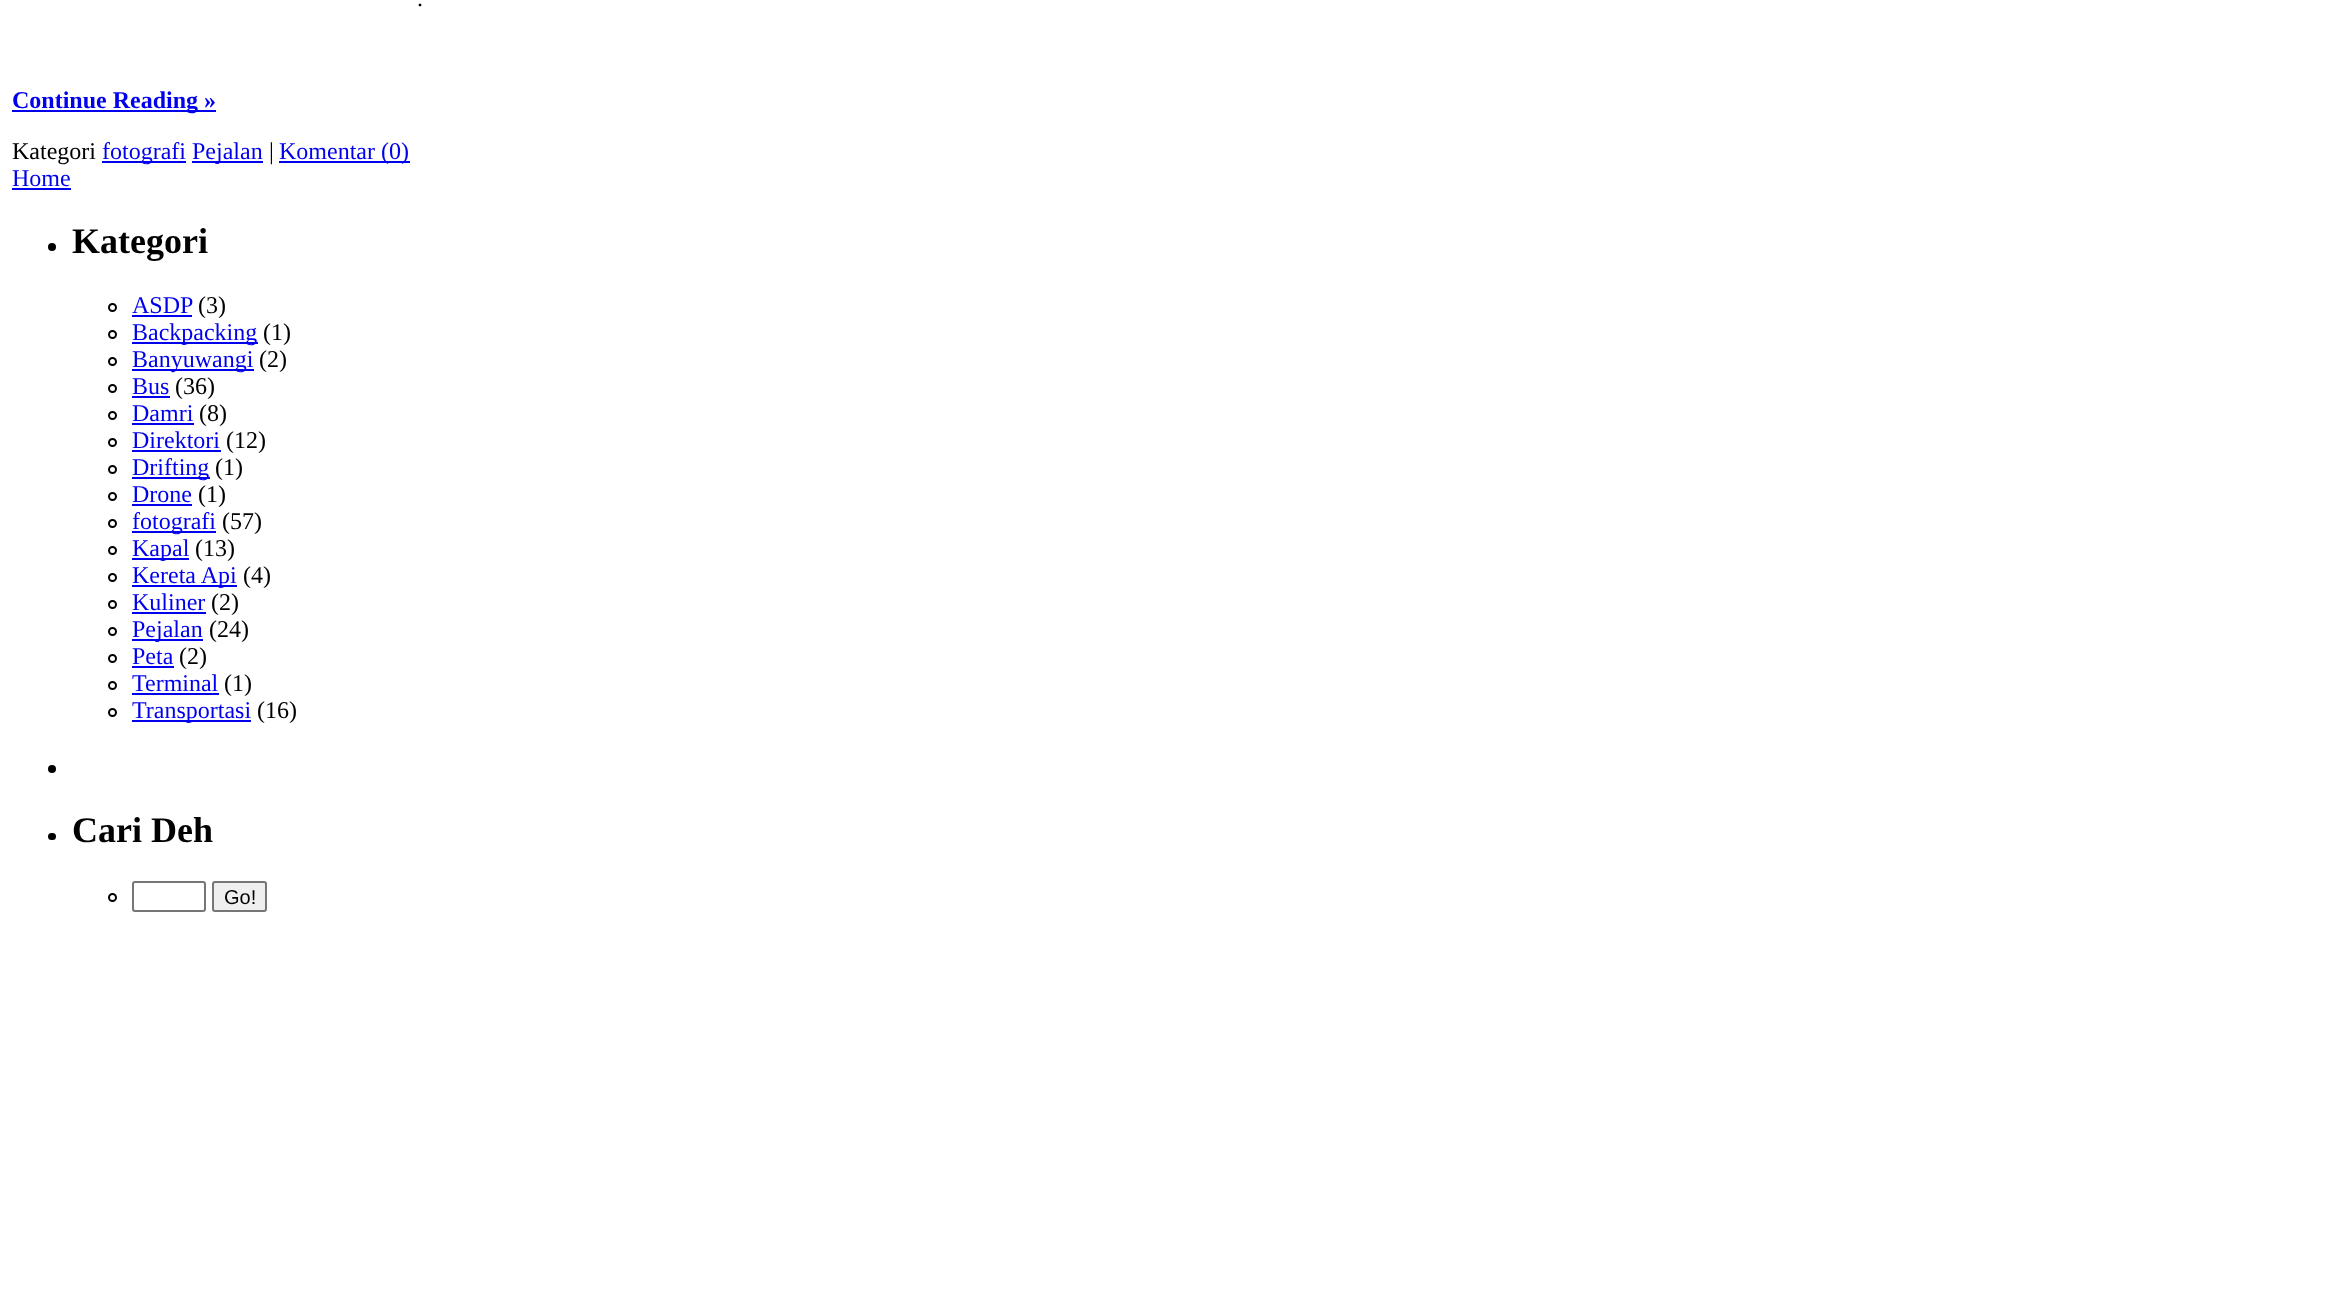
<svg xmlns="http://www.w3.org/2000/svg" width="2352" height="1293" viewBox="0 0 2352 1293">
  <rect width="100%" height="100%" fill="#ffffff"/>
  <text x="417" y="6" font-family="Liberation Serif" font-size="24" fill="#000000">.</text>
  <rect x="12" y="110" width="204" height="2" fill="#0000ee"/>
  <text x="12" y="108" font-family="Liberation Serif" font-size="24" font-weight="bold" fill="#0000ee">Continue Reading »</text>
  <text x="12" y="159" font-family="Liberation Serif" font-size="24" fill="#000000">Kategori</text>
  <rect x="102" y="161" width="84" height="2" fill="#0000ee"/>
  <text x="102" y="159" font-family="Liberation Serif" font-size="24" fill="#0000ee">fotografi</text>
  <rect x="192" y="161" width="71" height="2" fill="#0000ee"/>
  <text x="192" y="159" font-family="Liberation Serif" font-size="24" fill="#0000ee">Pejalan</text>
  <text x="269" y="159" font-family="Liberation Serif" font-size="24" fill="#000000">|</text>
  <rect x="279" y="161" width="131" height="2" fill="#0000ee"/>
  <text x="279" y="159" font-family="Liberation Serif" font-size="24" fill="#0000ee">Komentar (0)</text>
  <text x="12" y="186" font-family="Liberation Serif" font-size="24" fill="#0000ee">Home</text>
  <rect x="12" y="188" width="59" height="2" fill="#0000ee"/>
  <circle cx="52" cy="247" r="4" fill="#000000"/>
  <text x="72" y="253" font-family="Liberation Serif" font-size="36" font-weight="bold" fill="#000000">Kategori</text>
  <circle cx="112.5" cy="307.5" r="3.5" fill="none" stroke="#000000" stroke-width="2"/>
  <text x="132" y="313" font-family="Liberation Serif" font-size="24" fill="#0000ee">ASDP</text>
  <rect x="132" y="315" width="60" height="2" fill="#0000ee"/>
  <text x="198" y="313" font-family="Liberation Serif" font-size="24" fill="#000000">(3)</text>
  <circle cx="112.5" cy="334.5" r="3.5" fill="none" stroke="#000000" stroke-width="2"/>
  <rect x="132" y="342" width="126" height="2" fill="#0000ee"/>
  <text x="132" y="340" font-family="Liberation Serif" font-size="24" fill="#0000ee">Backpacking</text>
  <text x="263" y="340" font-family="Liberation Serif" font-size="24" fill="#000000">(1)</text>
  <circle cx="112.5" cy="361.5" r="3.5" fill="none" stroke="#000000" stroke-width="2"/>
  <rect x="132" y="369" width="122" height="2" fill="#0000ee"/>
  <text x="132" y="367" font-family="Liberation Serif" font-size="24" fill="#0000ee">Banyuwangi</text>
  <text x="259" y="367" font-family="Liberation Serif" font-size="24" fill="#000000">(2)</text>
  <circle cx="112.5" cy="388.5" r="3.5" fill="none" stroke="#000000" stroke-width="2"/>
  <text x="132" y="394" font-family="Liberation Serif" font-size="24" fill="#0000ee">Bus</text>
  <rect x="132" y="396" width="38" height="2" fill="#0000ee"/>
  <text x="175" y="394" font-family="Liberation Serif" font-size="24" fill="#000000">(36)</text>
  <circle cx="112.5" cy="415.5" r="3.5" fill="none" stroke="#000000" stroke-width="2"/>
  <text x="132" y="421" font-family="Liberation Serif" font-size="24" fill="#0000ee">Damri</text>
  <rect x="132" y="423" width="62" height="2" fill="#0000ee"/>
  <text x="199" y="421" font-family="Liberation Serif" font-size="24" fill="#000000">(8)</text>
  <circle cx="112.5" cy="442.5" r="3.5" fill="none" stroke="#000000" stroke-width="2"/>
  <text x="132" y="448" font-family="Liberation Serif" font-size="24" fill="#0000ee">Direktori</text>
  <rect x="132" y="450" width="89" height="2" fill="#0000ee"/>
  <text x="226" y="448" font-family="Liberation Serif" font-size="24" fill="#000000">(12)</text>
  <circle cx="112.5" cy="469.5" r="3.5" fill="none" stroke="#000000" stroke-width="2"/>
  <rect x="132" y="477" width="78" height="2" fill="#0000ee"/>
  <text x="132" y="475" font-family="Liberation Serif" font-size="24" fill="#0000ee">Drifting</text>
  <text x="215" y="475" font-family="Liberation Serif" font-size="24" fill="#000000">(1)</text>
  <circle cx="112.5" cy="496.5" r="3.5" fill="none" stroke="#000000" stroke-width="2"/>
  <text x="132" y="502" font-family="Liberation Serif" font-size="24" fill="#0000ee">Drone</text>
  <rect x="132" y="504" width="60" height="2" fill="#0000ee"/>
  <text x="198" y="502" font-family="Liberation Serif" font-size="24" fill="#000000">(1)</text>
  <circle cx="112.5" cy="523.5" r="3.5" fill="none" stroke="#000000" stroke-width="2"/>
  <rect x="132" y="531" width="84" height="2" fill="#0000ee"/>
  <text x="132" y="529" font-family="Liberation Serif" font-size="24" fill="#0000ee">fotografi</text>
  <text x="222" y="529" font-family="Liberation Serif" font-size="24" fill="#000000">(57)</text>
  <circle cx="112.5" cy="550.5" r="3.5" fill="none" stroke="#000000" stroke-width="2"/>
  <rect x="132" y="558" width="57" height="2" fill="#0000ee"/>
  <text x="132" y="556" font-family="Liberation Serif" font-size="24" fill="#0000ee">Kapal</text>
  <text x="195" y="556" font-family="Liberation Serif" font-size="24" fill="#000000">(13)</text>
  <circle cx="112.5" cy="577.5" r="3.5" fill="none" stroke="#000000" stroke-width="2"/>
  <rect x="132" y="585" width="105" height="2" fill="#0000ee"/>
  <text x="132" y="583" font-family="Liberation Serif" font-size="24" fill="#0000ee">Kereta Api</text>
  <text x="243" y="583" font-family="Liberation Serif" font-size="24" fill="#000000">(4)</text>
  <circle cx="112.5" cy="604.5" r="3.5" fill="none" stroke="#000000" stroke-width="2"/>
  <text x="132" y="610" font-family="Liberation Serif" font-size="24" fill="#0000ee">Kuliner</text>
  <rect x="132" y="612" width="74" height="2" fill="#0000ee"/>
  <text x="211" y="610" font-family="Liberation Serif" font-size="24" fill="#000000">(2)</text>
  <circle cx="112.5" cy="631.5" r="3.5" fill="none" stroke="#000000" stroke-width="2"/>
  <rect x="132" y="639" width="71" height="2" fill="#0000ee"/>
  <text x="132" y="637" font-family="Liberation Serif" font-size="24" fill="#0000ee">Pejalan</text>
  <text x="209" y="637" font-family="Liberation Serif" font-size="24" fill="#000000">(24)</text>
  <circle cx="112.5" cy="658.5" r="3.5" fill="none" stroke="#000000" stroke-width="2"/>
  <text x="132" y="664" font-family="Liberation Serif" font-size="24" fill="#0000ee">Peta</text>
  <rect x="132" y="666" width="42" height="2" fill="#0000ee"/>
  <text x="179" y="664" font-family="Liberation Serif" font-size="24" fill="#000000">(2)</text>
  <circle cx="112.5" cy="685.5" r="3.5" fill="none" stroke="#000000" stroke-width="2"/>
  <text x="132" y="691" font-family="Liberation Serif" font-size="24" fill="#0000ee">Terminal</text>
  <rect x="132" y="693" width="87" height="2" fill="#0000ee"/>
  <text x="224" y="691" font-family="Liberation Serif" font-size="24" fill="#000000">(1)</text>
  <circle cx="112.5" cy="712.5" r="3.5" fill="none" stroke="#000000" stroke-width="2"/>
  <rect x="132" y="720" width="119" height="2" fill="#0000ee"/>
  <text x="132" y="718" font-family="Liberation Serif" font-size="24" fill="#0000ee">Transportasi</text>
  <text x="257" y="718" font-family="Liberation Serif" font-size="24" fill="#000000">(16)</text>
  <circle cx="52" cy="769" r="4" fill="#000000"/>
  <rect x="48" y="833" width="8" height="7" rx="3.5" fill="#000000"/>
  <text x="72" y="842" font-family="Liberation Serif" font-size="36" font-weight="bold" fill="#000000">Cari Deh</text>
  <circle cx="112.5" cy="897.5" r="3.5" fill="none" stroke="#000000" stroke-width="2"/>
  <rect x="133" y="882" width="72" height="29" rx="2" fill="none" stroke="#767676" stroke-width="2"/>
  <rect x="213" y="882" width="53" height="29" rx="2" fill="#efefef" stroke="#767676" stroke-width="2"/>
  <text x="224" y="904" font-family="Liberation Sans" font-size="20" fill="#000000">Go!</text>
</svg>
